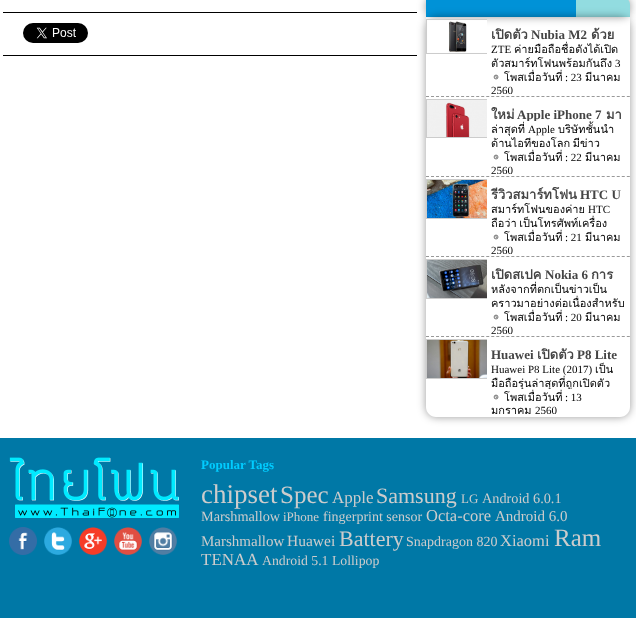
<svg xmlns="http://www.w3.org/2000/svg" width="636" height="618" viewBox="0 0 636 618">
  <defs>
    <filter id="blur1" x="-50%" y="-200%" width="200%" height="500%"><feGaussianBlur stdDeviation="4"/></filter>
    <clipPath id="clip1"><path d="M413 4H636V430H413ZM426 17H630V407C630 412.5 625.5 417 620 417H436C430.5 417 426 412.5 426 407Z" clip-rule="evenodd"/></clipPath>
    <clipPath id="clip2"><rect x="426" y="17" width="61" height="79"/></clipPath>
    <clipPath id="clip3"><rect x="426" y="97" width="61" height="79"/></clipPath>
    <clipPath id="clip4"><rect x="487" y="107" width="143" height="14"/></clipPath>
    <clipPath id="clip5"><rect x="426" y="177" width="61" height="79"/></clipPath>
    <clipPath id="clip6"><rect x="487" y="187" width="143" height="14"/></clipPath>
    <clipPath id="clip7"><rect x="487" y="201" width="143" height="28"/></clipPath>
    <clipPath id="clip8"><rect x="426" y="257" width="61" height="79"/></clipPath>
    <clipPath id="clip9"><rect x="426" y="337" width="61" height="80"/></clipPath>
    <clipPath id="clip10"><rect x="487" y="361" width="143" height="28"/></clipPath>
  </defs>
  <rect width="100%" height="100%" fill="#ffffff"/>
  <rect x="3" y="12" width="414" height="1" fill="#000000"/>
  <rect x="3" y="55" width="414" height="1" fill="#000000"/>
  <image x="23" y="23" width="65" height="20" href="img1.png"/>
  <rect x="426" y="-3" width="204" height="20" rx="8" fill="#000000" fill-opacity="0.4" filter="url(#blur1)"/>
  <path d="M434-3H622C626.5-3 630 .5 630 5V17H426V5C426 .5 429.5-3 434-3Z" fill="#92dce0"/>
  <rect x="426" y="0" width="150" height="17" fill="#0092d7"/>
  <g clip-path="url(#clip1)">
    <rect x="426" y="17" width="204" height="400" rx="10" fill="#000000" fill-opacity="0.4" filter="url(#blur1)"/>
  </g>
  <path d="M426 96.5H630" fill="none" stroke="#999999" stroke-dasharray="3 2.02"/>
  <g clip-path="url(#clip2)">
    <rect x="426.5" y="19.5" width="62" height="34" fill="none" stroke="#cccccc"/>
  </g>
  <image x="427" y="20" width="60" height="33" href="img2.png"/>
  <text x="491" y="39" font-family="Loma" font-size="13" font-weight="bold" fill="#444444">เปิดตัว</text>
  <text x="531" y="39" font-family="Liberation Serif" font-size="13" font-weight="bold" fill="#444444">Nubia M2</text>
  <text x="591" y="39" font-family="Loma" font-size="13" font-weight="bold" fill="#444444">ด้วย</text>
  <text x="491" y="53" font-family="Liberation Serif" font-size="11" fill="#000000">ZTE</text>
  <text x="514" y="53" font-family="Loma" font-size="11" fill="#000000">ค่ายมือถือชื่อดังได้เปิด</text>
  <text x="491" y="67" font-family="Loma" font-size="11" fill="#000000">ตัวสมาร์ทโฟนพร้อมกันถึง</text>
  <text x="615" y="67" font-family="Liberation Serif" font-size="11" fill="#000000">3</text>
  <image x="493" y="74" width="6" height="6" href="img3.png"/>
  <text x="504" y="81" font-family="Loma" font-size="11" fill="#000000">โพสเมื่อวันที่</text>
  <text x="565" y="81" font-family="Liberation Serif" font-size="11" fill="#000000">: 23</text>
  <text x="585" y="81" font-family="Loma" font-size="11" fill="#000000">มีนาคม</text>
  <text x="491" y="94" font-family="Liberation Serif" font-size="11" fill="#000000">2560</text>
  <path d="M426 176.5H630" fill="none" stroke="#999999" stroke-dasharray="3 2.02"/>
  <g clip-path="url(#clip3)">
    <rect x="426.5" y="99.5" width="62" height="38" fill="none" stroke="#cccccc"/>
  </g>
  <image x="427" y="100" width="60" height="37" href="img4.png"/>
  <text x="491" y="119" font-family="Loma" font-size="13" font-weight="bold" fill="#444444">ใหม่</text>
  <g clip-path="url(#clip4)">
    <text x="517" y="119" font-family="Liberation Serif" font-size="13" font-weight="bold" fill="#444444">Apple iPhone 7</text>
  </g>
  <text x="606" y="119" font-family="Loma" font-size="13" font-weight="bold" fill="#444444">มา</text>
  <text x="491" y="133" font-family="Loma" font-size="11" fill="#000000">ล่าสุดที่</text>
  <text x="528" y="133" font-family="Liberation Serif" font-size="11" fill="#000000">Apple</text>
  <text x="558" y="133" font-family="Loma" font-size="11" fill="#000000">บริษัทชั้นนำ</text>
  <text x="491" y="147" word-spacing="-1" font-family="Loma" font-size="11" fill="#000000">ด้านไอทีของโลก มีข่าว</text>
  <image x="493" y="154" width="6" height="6" href="img3.png"/>
  <text x="504" y="161" font-family="Loma" font-size="11" fill="#000000">โพสเมื่อวันที่</text>
  <text x="565" y="161" font-family="Liberation Serif" font-size="11" fill="#000000">: 22</text>
  <text x="585" y="161" font-family="Loma" font-size="11" fill="#000000">มีนาคม</text>
  <text x="491" y="174" font-family="Liberation Serif" font-size="11" fill="#000000">2560</text>
  <path d="M426 256.5H630" fill="none" stroke="#999999" stroke-dasharray="3 2.02"/>
  <g clip-path="url(#clip5)">
    <rect x="426.5" y="179.5" width="62" height="39" fill="none" stroke="#cccccc"/>
  </g>
  <image x="427" y="180" width="60" height="38" href="img5.png"/>
  <g clip-path="url(#clip6)">
    <text x="491" y="199" font-family="Loma" font-size="13" font-weight="bold" fill="#444444">รีวิวสมาร์ทโฟน</text>
  </g>
  <text x="580" y="199" font-family="Liberation Serif" font-size="13" font-weight="bold" fill="#444444">HTC U</text>
  <text x="491" y="213" font-family="Loma" font-size="11" fill="#000000">สมาร์ทโฟนของค่าย</text>
  <text x="588" y="213" font-family="Liberation Serif" font-size="11" fill="#000000">HTC</text>
  <g clip-path="url(#clip7)">
    <text x="491" y="227" word-spacing="-1" font-family="Loma" font-size="11" fill="#000000">ถือว่า เป็นโทรศัพท์เครื่อง</text>
  </g>
  <image x="493" y="234" width="6" height="6" href="img3.png"/>
  <text x="504" y="241" font-family="Loma" font-size="11" fill="#000000">โพสเมื่อวันที่</text>
  <text x="565" y="241" font-family="Liberation Serif" font-size="11" fill="#000000">: 21</text>
  <text x="585" y="241" font-family="Loma" font-size="11" fill="#000000">มีนาคม</text>
  <text x="491" y="254" font-family="Liberation Serif" font-size="11" fill="#000000">2560</text>
  <path d="M426 336.5H630" fill="none" stroke="#999999" stroke-dasharray="3 2.02"/>
  <g clip-path="url(#clip8)">
    <rect x="426.5" y="259.5" width="62" height="39" fill="none" stroke="#cccccc"/>
  </g>
  <image x="427" y="260" width="60" height="38" href="img6.png"/>
  <text x="491" y="279" font-family="Loma" font-size="13" font-weight="bold" fill="#444444">เปิดสเปค</text>
  <text x="545" y="279" font-family="Liberation Serif" font-size="13" font-weight="bold" fill="#444444">Nokia 6</text>
  <text x="591" y="279" font-family="Loma" font-size="13" font-weight="bold" fill="#444444">การ</text>
  <text x="491" y="293" font-family="Loma" font-size="11" fill="#000000">หลังจากที่ตกเป็นข่าวเป็น</text>
  <text x="491" y="307" font-family="Loma" font-size="11" fill="#000000">คราวมาอย่างต่อเนื่องสำหรับ</text>
  <image x="493" y="314" width="6" height="6" href="img3.png"/>
  <text x="504" y="321" font-family="Loma" font-size="11" fill="#000000">โพสเมื่อวันที่</text>
  <text x="565" y="321" font-family="Liberation Serif" font-size="11" fill="#000000">: 20</text>
  <text x="585" y="321" font-family="Loma" font-size="11" fill="#000000">มีนาคม</text>
  <text x="491" y="334" font-family="Liberation Serif" font-size="11" fill="#000000">2560</text>
  <g clip-path="url(#clip9)">
    <rect x="426.5" y="339.5" width="62" height="39" fill="none" stroke="#cccccc"/>
  </g>
  <image x="427" y="340" width="60" height="38" href="img7.png"/>
  <text x="491" y="359" font-family="Liberation Serif" font-size="13" font-weight="bold" fill="#444444">Huawei</text>
  <text x="537" y="359" font-family="Loma" font-size="13" font-weight="bold" fill="#444444">เปิดตัว</text>
  <text x="577" y="359" font-family="Liberation Serif" font-size="13" font-weight="bold" fill="#444444">P8 Lite</text>
  <text x="491" y="373" font-family="Liberation Serif" font-size="11" fill="#000000">Huawei P8 Lite (2017)</text>
  <text x="595" y="373" font-family="Loma" font-size="11" fill="#000000">เป็น</text>
  <g clip-path="url(#clip10)">
    <text x="491" y="387" font-family="Loma" font-size="11" fill="#000000">มือถือรุ่นล่าสุดที่ถูกเปิดตัว</text>
  </g>
  <image x="493" y="394" width="6" height="6" href="img3.png"/>
  <text x="504" y="401" font-family="Loma" font-size="11" fill="#000000">โพสเมื่อวันที่</text>
  <text x="565" y="401" font-family="Liberation Serif" font-size="11" fill="#000000">: 13</text>
  <text x="491" y="414" font-family="Loma" font-size="11" fill="#000000">มกราคม</text>
  <text x="535" y="414" font-family="Liberation Serif" font-size="11" fill="#000000">2560</text>
  <rect x="0" y="438" width="636" height="180" fill="#0078a6"/>
  <image x="9" y="457" width="170" height="61" href="img8.png"/>
  <image x="9" y="527" width="28" height="28" href="img9.png"/>
  <image x="44" y="527" width="28" height="28" href="img10.png"/>
  <image x="79" y="527" width="28" height="28" href="img11.png"/>
  <image x="114" y="527" width="28" height="28" href="img12.png"/>
  <image x="149" y="527" width="28" height="28" href="img13.png"/>
  <text x="201" y="469" font-family="Liberation Serif" font-size="13" font-weight="bold" fill="#00ccff">Popular Tags</text>
  <text x="201" y="503" font-family="Liberation Serif" font-size="27" fill="#cccccc">chipset</text>
  <text x="280" y="503" font-family="Liberation Serif" font-size="25" fill="#cccccc">Spec</text>
  <text x="332" y="503" font-family="Liberation Serif" font-size="17" fill="#cccccc">Apple</text>
  <text x="376" y="503" font-family="Liberation Serif" font-size="22" fill="#cccccc">Samsung</text>
  <text x="461" y="503" font-family="Liberation Serif" font-size="13" fill="#cccccc">LG</text>
  <text x="482" y="503" font-family="Liberation Serif" font-size="14.25" fill="#cccccc">Android 6.0.1</text>
  <text x="201" y="521" font-family="Liberation Serif" font-size="14.25" fill="#cccccc">Marshmallow</text>
  <text x="283" y="521" font-family="Liberation Serif" font-size="13" fill="#cccccc">iPhone</text>
  <text x="323" y="521" font-family="Liberation Serif" font-size="14" fill="#cccccc">fingerprint sensor</text>
  <text x="426" y="521" font-family="Liberation Serif" font-size="16.5" fill="#cccccc">Octa-core</text>
  <text x="495" y="521" font-family="Liberation Serif" font-size="15" fill="#cccccc">Android 6.0</text>
  <text x="201" y="546" font-family="Liberation Serif" font-size="15" fill="#cccccc">Marshmallow</text>
  <text x="287" y="546" font-family="Liberation Serif" font-size="15.5" fill="#cccccc">Huawei</text>
  <text x="339" y="546" font-family="Liberation Serif" font-size="22" fill="#cccccc">Battery</text>
  <text x="406" y="546" font-family="Liberation Serif" font-size="14" fill="#cccccc">Snapdragon 820</text>
  <text x="500" y="546" font-family="Liberation Serif" font-size="16.5" fill="#cccccc">Xiaomi</text>
  <text x="554" y="546" font-family="Liberation Serif" font-size="25" fill="#cccccc">Ram</text>
  <text x="201" y="565" font-family="Liberation Serif" font-size="17" fill="#cccccc">TENAA</text>
  <text x="262" y="565" font-family="Liberation Serif" font-size="13.75" fill="#cccccc">Android 5.1 Lollipop</text>
</svg>
